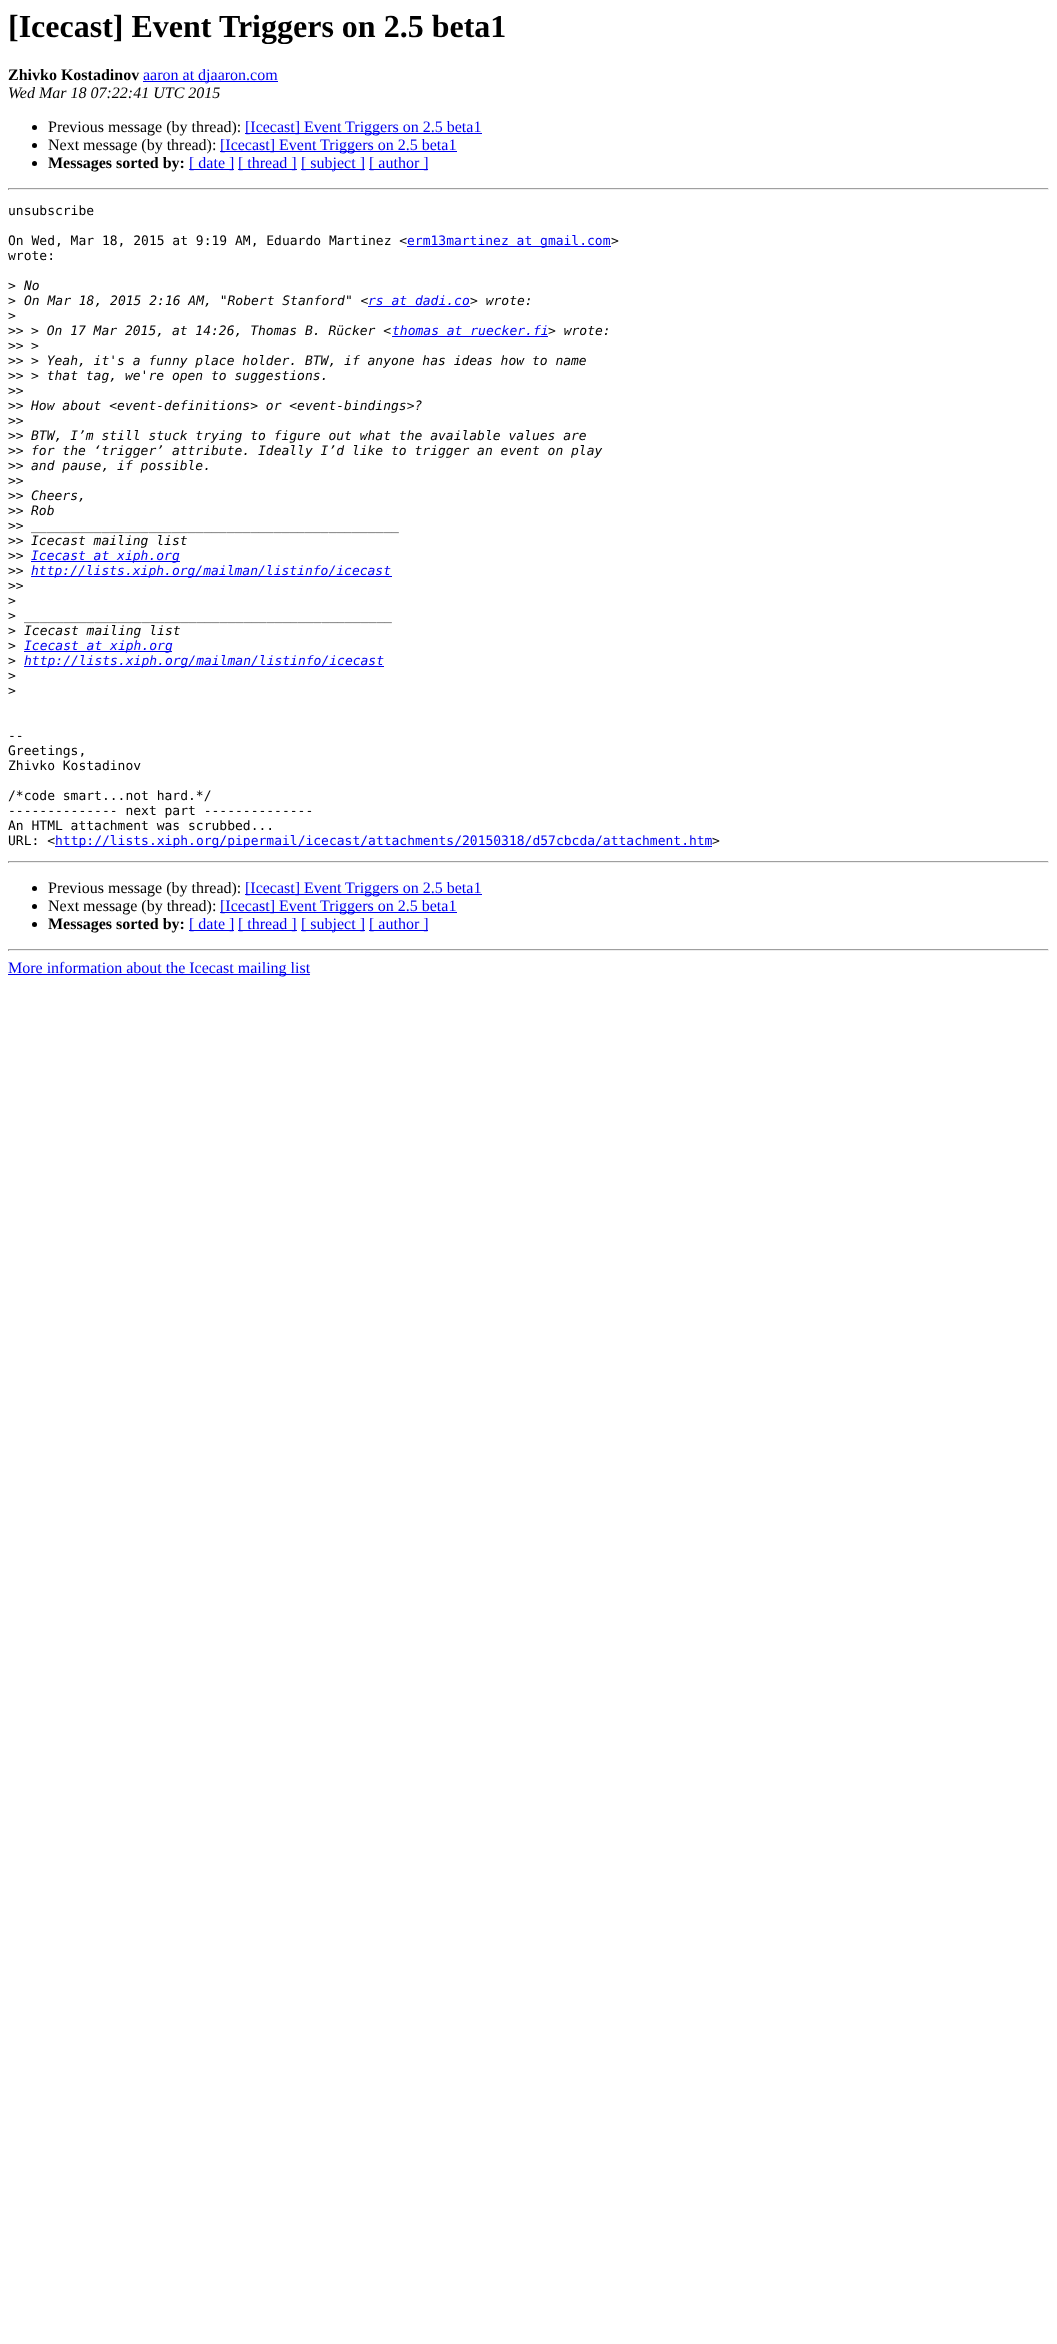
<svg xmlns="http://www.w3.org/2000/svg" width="1057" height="2344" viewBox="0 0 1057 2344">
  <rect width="100%" height="100%" fill="#ffffff"/>
  <text x="8" y="37" font-family="Liberation Serif" font-size="32" font-weight="bold" fill="#000000">[Icecast] Event Triggers on 2.5 beta1</text>
  <text x="8" y="80" font-family="Liberation Serif" font-size="16" font-weight="bold" fill="#000000">Zhivko Kostadinov</text>
  <rect x="143" y="81" width="135" height="1" fill="#0000ee"/>
  <text x="143" y="80" font-family="Liberation Serif" font-size="16" fill="#0000ee">aaron at djaaron.com</text>
  <text x="8" y="98" font-family="Liberation Serif" font-size="16" font-style="italic" fill="#000000">Wed Mar 18 07:22:41 UTC 2015</text>
  <circle cx="34.5" cy="127.5" r="2.5" fill="#000000"/>
  <text x="48" y="132" font-family="Liberation Serif" font-size="16" fill="#000000">Previous message (by thread):</text>
  <rect x="245" y="133" width="237" height="1" fill="#0000ee"/>
  <text x="245" y="132" font-family="Liberation Serif" font-size="16" fill="#0000ee">[Icecast] Event Triggers on 2.5 beta1</text>
  <circle cx="34.5" cy="145.5" r="2.5" fill="#000000"/>
  <text x="48" y="150" font-family="Liberation Serif" font-size="16" fill="#000000">Next message (by thread):</text>
  <rect x="220" y="151" width="237" height="1" fill="#0000ee"/>
  <text x="220" y="150" font-family="Liberation Serif" font-size="16" fill="#0000ee">[Icecast] Event Triggers on 2.5 beta1</text>
  <circle cx="34.5" cy="163.5" r="2.5" fill="#000000"/>
  <text x="48" y="168" font-family="Liberation Serif" font-size="16" font-weight="bold" fill="#000000">Messages sorted by:</text>
  <rect x="189" y="169" width="45" height="1" fill="#0000ee"/>
  <text x="189" y="168" font-family="Liberation Serif" font-size="16" fill="#0000ee">[ date ]</text>
  <rect x="238" y="169" width="59" height="1" fill="#0000ee"/>
  <text x="238" y="168" font-family="Liberation Serif" font-size="16" fill="#0000ee">[ thread ]</text>
  <rect x="301" y="169" width="64" height="1" fill="#0000ee"/>
  <text x="301" y="168" font-family="Liberation Serif" font-size="16" fill="#0000ee">[ subject ]</text>
  <rect x="369" y="169" width="59" height="1" fill="#0000ee"/>
  <text x="369" y="168" font-family="Liberation Serif" font-size="16" fill="#0000ee">[ author ]</text>
  <rect x="8" y="188" width="1041" height="1" fill="#9f9f9f"/>
  <rect x="1048" y="188" width="1" height="2" fill="#eeeeee"/>
  <rect x="8" y="189" width="1041" height="1" fill="#eeeeee"/>
  <rect x="8" y="188" width="1" height="2" fill="#9f9f9f"/>
  <text x="8" y="215" font-family="DejaVu Sans Mono" font-size="13" fill="#000000">unsubscribe</text>
  <text x="8" y="245" font-family="DejaVu Sans Mono" font-size="13" fill="#000000">On Wed, Mar 18, 2015 at 9:19 AM, Eduardo Martinez &lt;</text>
  <rect x="407" y="246" width="204" height="1" fill="#0000ee"/>
  <text x="407" y="245" font-family="DejaVu Sans Mono" font-size="13" fill="#0000ee">erm13martinez at gmail.com</text>
  <text x="611" y="245" font-family="DejaVu Sans Mono" font-size="13" fill="#000000">&gt;</text>
  <text x="8" y="260" font-family="DejaVu Sans Mono" font-size="13" fill="#000000">wrote:</text>
  <text x="8" y="290" font-family="DejaVu Sans Mono" font-size="13" fill="#000000">&gt;</text>
  <text x="24" y="290" font-family="DejaVu Sans Mono" font-size="13" font-style="italic" fill="#000000">No</text>
  <text x="8" y="305" font-family="DejaVu Sans Mono" font-size="13" fill="#000000">&gt;</text>
  <text x="24" y="305" font-family="DejaVu Sans Mono" font-size="13" font-style="italic" fill="#000000">On Mar 18, 2015 2:16 AM, "Robert Stanford" &lt;</text>
  <rect x="368" y="306" width="102" height="1" fill="#0000ee"/>
  <text x="368" y="305" font-family="DejaVu Sans Mono" font-size="13" font-style="italic" fill="#0000ee">rs at dadi.co</text>
  <text x="470" y="305" font-family="DejaVu Sans Mono" font-size="13" font-style="italic" fill="#000000">&gt; wrote:</text>
  <text x="8" y="320" font-family="DejaVu Sans Mono" font-size="13" fill="#000000">&gt;</text>
  <text x="8" y="335" font-family="DejaVu Sans Mono" font-size="13" fill="#000000">&gt;&gt;</text>
  <text x="31" y="335" font-family="DejaVu Sans Mono" font-size="13" font-style="italic" fill="#000000">&gt; On 17 Mar 2015, at 14:26, Thomas B. Rücker &lt;</text>
  <rect x="392" y="336" width="156" height="1" fill="#0000ee"/>
  <text x="392" y="335" font-family="DejaVu Sans Mono" font-size="13" font-style="italic" fill="#0000ee">thomas at ruecker.fi</text>
  <text x="548" y="335" font-family="DejaVu Sans Mono" font-size="13" font-style="italic" fill="#000000">&gt; wrote:</text>
  <text x="8" y="350" font-family="DejaVu Sans Mono" font-size="13" fill="#000000">&gt;&gt;</text>
  <text x="31" y="350" font-family="DejaVu Sans Mono" font-size="13" font-style="italic" fill="#000000">&gt;</text>
  <text x="8" y="365" font-family="DejaVu Sans Mono" font-size="13" fill="#000000">&gt;&gt;</text>
  <text x="31" y="365" font-family="DejaVu Sans Mono" font-size="13" font-style="italic" fill="#000000">&gt; Yeah, it's a funny place holder. BTW, if anyone has ideas how to name</text>
  <text x="8" y="380" font-family="DejaVu Sans Mono" font-size="13" fill="#000000">&gt;&gt;</text>
  <text x="31" y="380" font-family="DejaVu Sans Mono" font-size="13" font-style="italic" fill="#000000">&gt; that tag, we're open to suggestions.</text>
  <text x="8" y="395" font-family="DejaVu Sans Mono" font-size="13" fill="#000000">&gt;&gt;</text>
  <text x="8" y="410" font-family="DejaVu Sans Mono" font-size="13" fill="#000000">&gt;&gt;</text>
  <text x="31" y="410" font-family="DejaVu Sans Mono" font-size="13" font-style="italic" fill="#000000">How about &lt;event-definitions&gt; or &lt;event-bindings&gt;?</text>
  <text x="8" y="425" font-family="DejaVu Sans Mono" font-size="13" fill="#000000">&gt;&gt;</text>
  <text x="8" y="440" font-family="DejaVu Sans Mono" font-size="13" fill="#000000">&gt;&gt;</text>
  <text x="31" y="440" font-family="DejaVu Sans Mono" font-size="13" font-style="italic" fill="#000000">BTW, I’m still stuck trying to figure out what the available values are</text>
  <text x="8" y="455" font-family="DejaVu Sans Mono" font-size="13" fill="#000000">&gt;&gt;</text>
  <text x="31" y="455" font-family="DejaVu Sans Mono" font-size="13" font-style="italic" fill="#000000">for the ‘trigger’ attribute. Ideally I’d like to trigger an event on play</text>
  <text x="8" y="470" font-family="DejaVu Sans Mono" font-size="13" fill="#000000">&gt;&gt;</text>
  <text x="31" y="470" font-family="DejaVu Sans Mono" font-size="13" font-style="italic" fill="#000000">and pause, if possible.</text>
  <text x="8" y="485" font-family="DejaVu Sans Mono" font-size="13" fill="#000000">&gt;&gt;</text>
  <text x="8" y="500" font-family="DejaVu Sans Mono" font-size="13" fill="#000000">&gt;&gt;</text>
  <text x="31" y="500" font-family="DejaVu Sans Mono" font-size="13" font-style="italic" fill="#000000">Cheers,</text>
  <text x="8" y="515" font-family="DejaVu Sans Mono" font-size="13" fill="#000000">&gt;&gt;</text>
  <text x="31" y="515" font-family="DejaVu Sans Mono" font-size="13" font-style="italic" fill="#000000">Rob</text>
  <text x="8" y="530" font-family="DejaVu Sans Mono" font-size="13" fill="#000000">&gt;&gt;</text>
  <text x="31" y="530" font-family="DejaVu Sans Mono" font-size="13" font-style="italic" fill="#000000">_______________________________________________</text>
  <text x="8" y="545" font-family="DejaVu Sans Mono" font-size="13" fill="#000000">&gt;&gt;</text>
  <text x="31" y="545" font-family="DejaVu Sans Mono" font-size="13" font-style="italic" fill="#000000">Icecast mailing list</text>
  <text x="8" y="560" font-family="DejaVu Sans Mono" font-size="13" fill="#000000">&gt;&gt;</text>
  <rect x="31" y="561" width="149" height="1" fill="#0000ee"/>
  <text x="31" y="560" font-family="DejaVu Sans Mono" font-size="13" font-style="italic" fill="#0000ee">Icecast at xiph.org</text>
  <text x="8" y="575" font-family="DejaVu Sans Mono" font-size="13" fill="#000000">&gt;&gt;</text>
  <rect x="31" y="576" width="361" height="1" fill="#0000ee"/>
  <text x="31" y="575" font-family="DejaVu Sans Mono" font-size="13" font-style="italic" fill="#0000ee">http://lists.xiph.org/mailman/listinfo/icecast</text>
  <text x="8" y="590" font-family="DejaVu Sans Mono" font-size="13" fill="#000000">&gt;&gt;</text>
  <text x="8" y="605" font-family="DejaVu Sans Mono" font-size="13" fill="#000000">&gt;</text>
  <text x="8" y="620" font-family="DejaVu Sans Mono" font-size="13" fill="#000000">&gt;</text>
  <text x="24" y="620" font-family="DejaVu Sans Mono" font-size="13" font-style="italic" fill="#000000">_______________________________________________</text>
  <text x="8" y="635" font-family="DejaVu Sans Mono" font-size="13" fill="#000000">&gt;</text>
  <text x="24" y="635" font-family="DejaVu Sans Mono" font-size="13" font-style="italic" fill="#000000">Icecast mailing list</text>
  <text x="8" y="650" font-family="DejaVu Sans Mono" font-size="13" fill="#000000">&gt;</text>
  <rect x="24" y="651" width="148" height="1" fill="#0000ee"/>
  <text x="24" y="650" font-family="DejaVu Sans Mono" font-size="13" font-style="italic" fill="#0000ee">Icecast at xiph.org</text>
  <text x="8" y="665" font-family="DejaVu Sans Mono" font-size="13" fill="#000000">&gt;</text>
  <rect x="24" y="666" width="360" height="1" fill="#0000ee"/>
  <text x="24" y="665" font-family="DejaVu Sans Mono" font-size="13" font-style="italic" fill="#0000ee">http://lists.xiph.org/mailman/listinfo/icecast</text>
  <text x="8" y="680" font-family="DejaVu Sans Mono" font-size="13" fill="#000000">&gt;</text>
  <text x="8" y="695" font-family="DejaVu Sans Mono" font-size="13" fill="#000000">&gt;</text>
  <text x="8" y="740" font-family="DejaVu Sans Mono" font-size="13" fill="#000000">--</text>
  <text x="8" y="755" font-family="DejaVu Sans Mono" font-size="13" fill="#000000">Greetings,</text>
  <text x="8" y="770" font-family="DejaVu Sans Mono" font-size="13" fill="#000000">Zhivko Kostadinov</text>
  <text x="8" y="800" font-family="DejaVu Sans Mono" font-size="13" fill="#000000">/*code smart...not hard.*/</text>
  <text x="8" y="815" font-family="DejaVu Sans Mono" font-size="13" fill="#000000">-------------- next part --------------</text>
  <text x="8" y="830" font-family="DejaVu Sans Mono" font-size="13" fill="#000000">An HTML attachment was scrubbed...</text>
  <text x="8" y="845" font-family="DejaVu Sans Mono" font-size="13" fill="#000000">URL: &lt;</text>
  <rect x="55" y="846" width="657" height="1" fill="#0000ee"/>
  <text x="55" y="845" font-family="DejaVu Sans Mono" font-size="13" fill="#0000ee">http://lists.xiph.org/pipermail/icecast/attachments/20150318/d57cbcda/attachment.htm</text>
  <text x="712" y="845" font-family="DejaVu Sans Mono" font-size="13" fill="#000000">&gt;</text>
  <rect x="8" y="861" width="1041" height="1" fill="#9f9f9f"/>
  <rect x="1048" y="861" width="1" height="2" fill="#eeeeee"/>
  <rect x="8" y="862" width="1041" height="1" fill="#eeeeee"/>
  <rect x="8" y="861" width="1" height="2" fill="#9f9f9f"/>
  <circle cx="34.5" cy="888.5" r="2.5" fill="#000000"/>
  <text x="48" y="893" font-family="Liberation Serif" font-size="16" fill="#000000">Previous message (by thread):</text>
  <rect x="245" y="894" width="237" height="1" fill="#0000ee"/>
  <text x="245" y="893" font-family="Liberation Serif" font-size="16" fill="#0000ee">[Icecast] Event Triggers on 2.5 beta1</text>
  <circle cx="34.5" cy="906.5" r="2.5" fill="#000000"/>
  <text x="48" y="911" font-family="Liberation Serif" font-size="16" fill="#000000">Next message (by thread):</text>
  <rect x="220" y="912" width="237" height="1" fill="#0000ee"/>
  <text x="220" y="911" font-family="Liberation Serif" font-size="16" fill="#0000ee">[Icecast] Event Triggers on 2.5 beta1</text>
  <circle cx="34.5" cy="924.5" r="2.5" fill="#000000"/>
  <text x="48" y="929" font-family="Liberation Serif" font-size="16" font-weight="bold" fill="#000000">Messages sorted by:</text>
  <rect x="189" y="930" width="45" height="1" fill="#0000ee"/>
  <text x="189" y="929" font-family="Liberation Serif" font-size="16" fill="#0000ee">[ date ]</text>
  <rect x="238" y="930" width="59" height="1" fill="#0000ee"/>
  <text x="238" y="929" font-family="Liberation Serif" font-size="16" fill="#0000ee">[ thread ]</text>
  <rect x="301" y="930" width="64" height="1" fill="#0000ee"/>
  <text x="301" y="929" font-family="Liberation Serif" font-size="16" fill="#0000ee">[ subject ]</text>
  <rect x="369" y="930" width="59" height="1" fill="#0000ee"/>
  <text x="369" y="929" font-family="Liberation Serif" font-size="16" fill="#0000ee">[ author ]</text>
  <rect x="8" y="949" width="1041" height="1" fill="#9f9f9f"/>
  <rect x="1048" y="949" width="1" height="2" fill="#eeeeee"/>
  <rect x="8" y="950" width="1041" height="1" fill="#eeeeee"/>
  <rect x="8" y="949" width="1" height="2" fill="#9f9f9f"/>
  <rect x="8" y="974" width="302" height="1" fill="#0000ee"/>
  <text x="8" y="973" font-family="Liberation Serif" font-size="16" fill="#0000ee">More information about the Icecast mailing list</text>
</svg>
